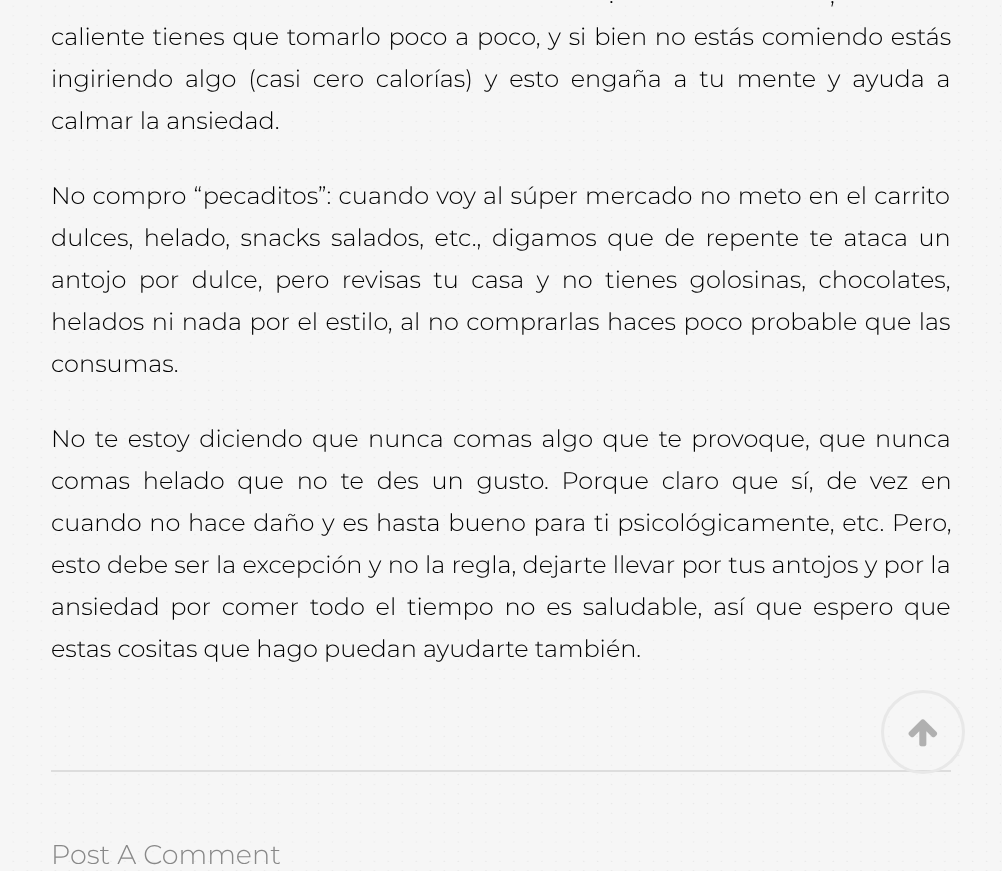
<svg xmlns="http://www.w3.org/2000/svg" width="1002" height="871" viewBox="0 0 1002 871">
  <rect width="100%" height="100%" fill="#f6f6f6"/>
  <image x="12" y="5" width="989" height="866" href="img1.png"/>
  <text x="609" y="3" word-spacing="5" font-family="Montserrat" font-size="24" font-weight="300" fill="#000000">.</text>
  <text x="830" y="3" word-spacing="5" font-family="Montserrat" font-size="24" font-weight="300" fill="#000000">,</text>
  <text x="51" y="45" word-spacing="1.6" font-family="Montserrat" font-size="24" font-weight="300" fill="#000000">caliente tienes que tomarlo poco a poco, y si bien no estás comiendo estás</text>
  <text x="51" y="87" word-spacing="5.6" font-family="Montserrat" font-size="24" font-weight="300" fill="#000000">ingiriendo algo (casi cero calorías) y esto engaña a tu mente y ayuda a</text>
  <text x="51" y="129" font-family="Montserrat" font-size="24" font-weight="300" fill="#000000">calmar la ansiedad.</text>
  <text x="51" y="204" word-spacing="1" font-family="Montserrat" font-size="24" font-weight="300" fill="#000000">No compro “pecaditos”: cuando voy al súper mercado no meto en el carrito</text>
  <text x="51" y="246" word-spacing="4.4" font-family="Montserrat" font-size="24" font-weight="300" fill="#000000">dulces, helado, snacks salados, etc., digamos que de repente te ataca un</text>
  <text x="51" y="288" word-spacing="6.25" font-family="Montserrat" font-size="24" font-weight="300" fill="#000000">antojo por dulce, pero revisas tu casa y no tienes golosinas, chocolates,</text>
  <text x="51" y="330" word-spacing="1.3" font-family="Montserrat" font-size="24" font-weight="300" fill="#000000">helados ni nada por el estilo, al no comprarlas haces poco probable que las</text>
  <text x="51" y="372" font-family="Montserrat" font-size="24" font-weight="300" fill="#000000">consumas.</text>
  <text x="51" y="447" word-spacing="3.25" font-family="Montserrat" font-size="24" font-weight="300" fill="#000000">No te estoy diciendo que nunca comas algo que te provoque, que nunca</text>
  <text x="51" y="489" word-spacing="6.6" font-family="Montserrat" font-size="24" font-weight="300" fill="#000000">comas helado que no te des un gusto. Porque claro que sí, de vez en</text>
  <text x="51" y="531" word-spacing="1.5" font-family="Montserrat" font-size="24" font-weight="300" fill="#000000">cuando no hace daño y es hasta bueno para ti psicológicamente, etc. Pero,</text>
  <text x="51" y="573" word-spacing="0.1" font-family="Montserrat" font-size="24" font-weight="300" fill="#000000">esto debe ser la excepción y no la regla, dejarte llevar por tus antojos y por la</text>
  <text x="51" y="615" word-spacing="4.6" font-family="Montserrat" font-size="24" font-weight="300" fill="#000000">ansiedad por comer todo el tiempo no es saludable, así que espero que</text>
  <text x="51" y="657" font-family="Montserrat" font-size="24" font-weight="300" fill="#000000">estas cositas que hago puedan ayudarte también.</text>
  <rect x="51" y="770" width="900" height="2" fill="#dddddd"/>
  <text x="51" y="864" font-family="Montserrat" font-size="27" font-weight="300" fill="#888888">Post A Comment</text>
  <circle cx="923" cy="732" r="40.5" fill="none" stroke="#e8e8e8" stroke-width="3"/>
  <image x="908" y="719" width="30" height="28" href="img2.png"/>
</svg>
